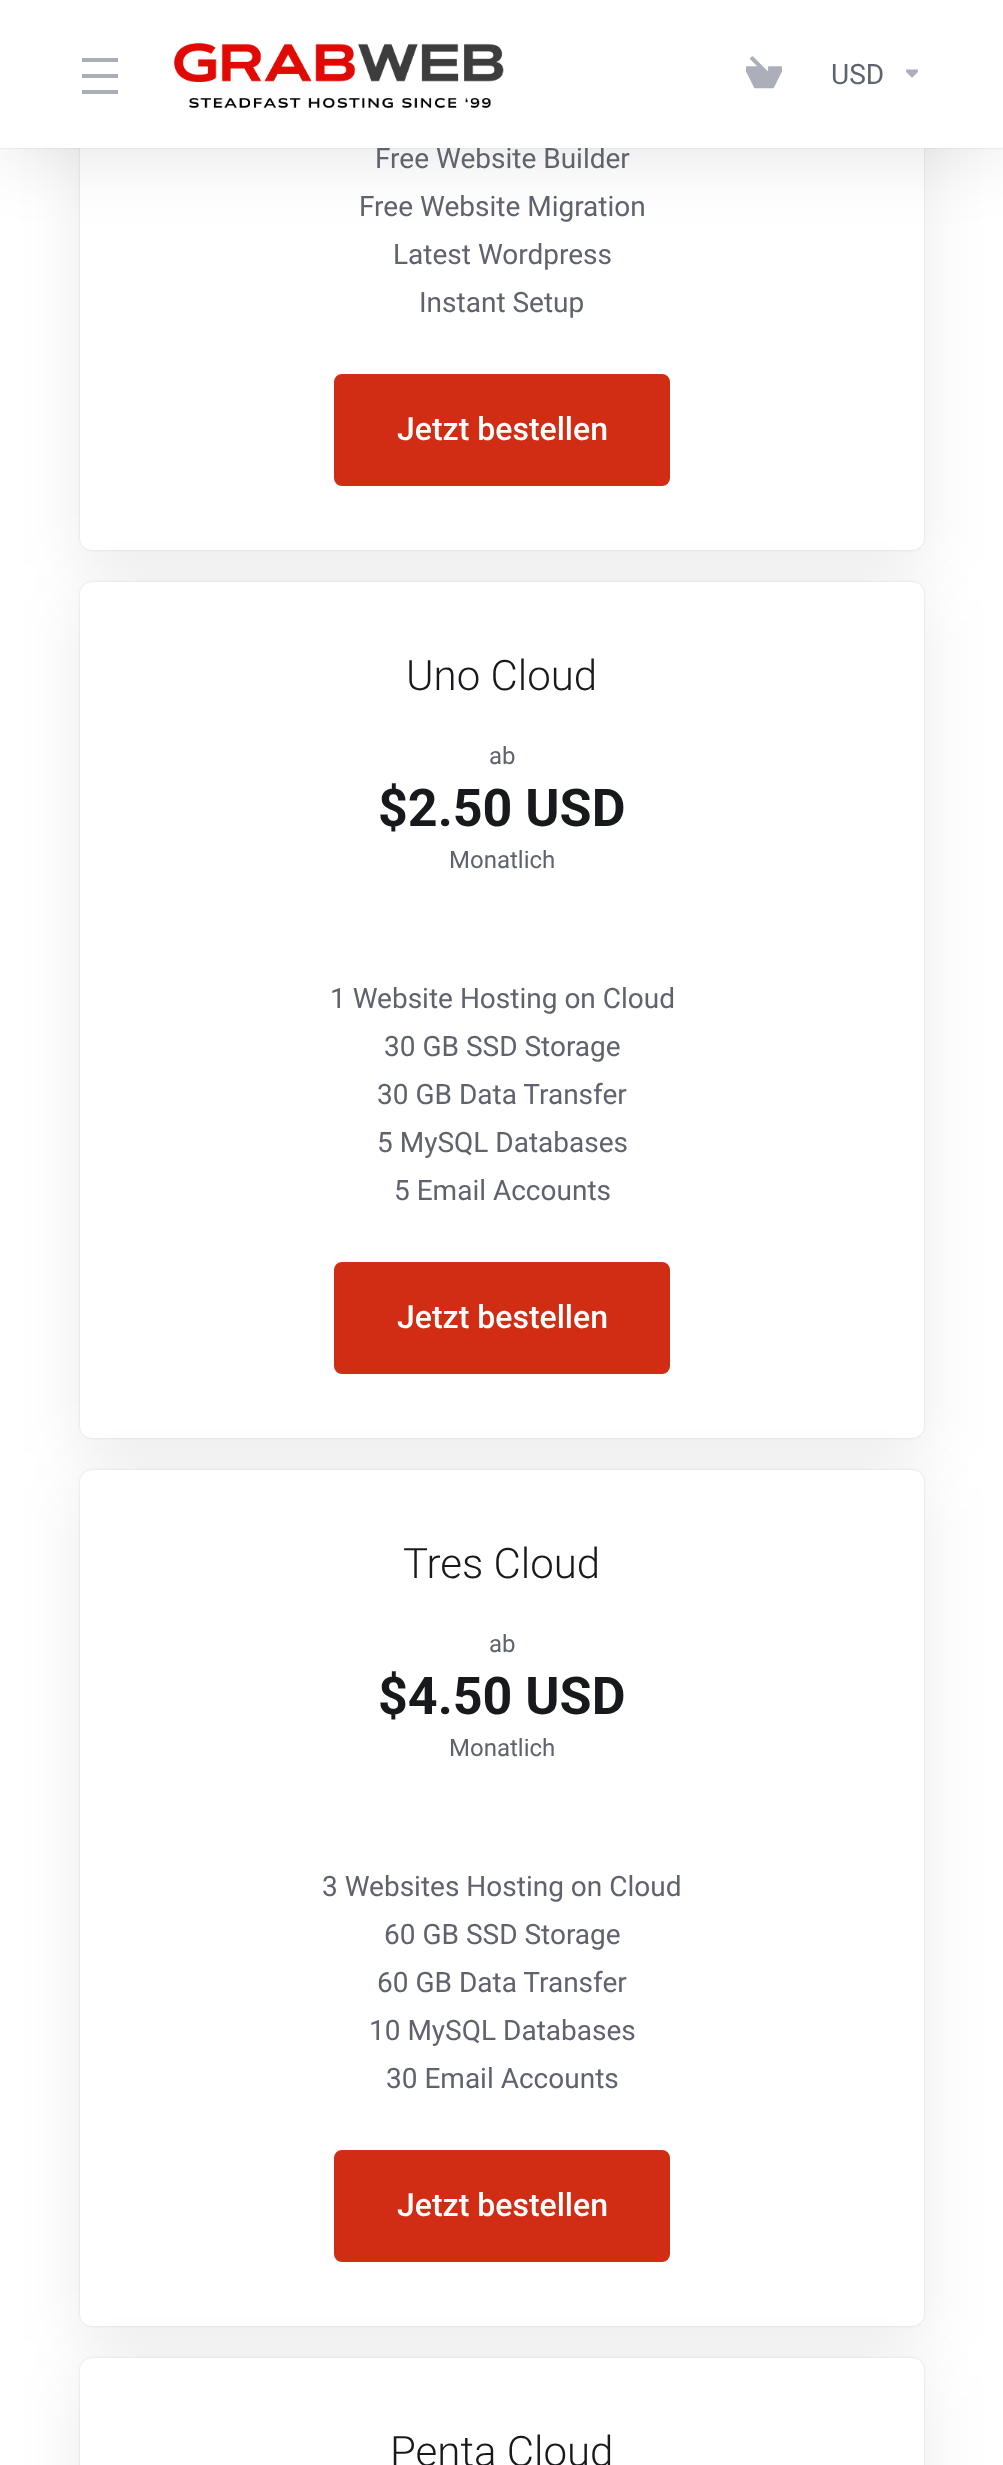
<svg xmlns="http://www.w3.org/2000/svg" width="1003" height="2465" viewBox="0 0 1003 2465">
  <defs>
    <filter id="blur1" x="-50%" y="-200%" width="200%" height="500%"><feGaussianBlur stdDeviation="32"/></filter>
    <filter id="blur2" x="-50%" y="-200%" width="200%" height="500%"><feGaussianBlur stdDeviation="1"/></filter>
  </defs>
  <rect width="100%" height="100%" fill="#ffffff"/>
  <rect x="80" y="-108" width="844" height="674" rx="12" fill="#000000" fill-opacity="0.08" filter="url(#blur1)"/>
  <rect x="80" y="-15" width="844" height="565" rx="12" fill="#000000" fill-opacity="0.12" filter="url(#blur2)"/>
  <rect x="80" y="-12" width="844" height="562" rx="12" fill="#ffffff"/>
  <rect x="0" y="16" width="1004" height="148" fill="#000000" fill-opacity="0.08" filter="url(#blur1)"/>
  <rect x="0" y="0" width="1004" height="148" fill="#000000" fill-opacity="0.12" filter="url(#blur2)"/>
  <text x="375" y="168" font-family="Roboto" font-size="28" fill="#5e636e">Free Website Builder</text>
  <rect x="0" y="0" width="1003" height="148" fill="#ffffff"/>
  <rect x="82" y="58" width="36" height="4" fill="#acafb9"/>
  <rect x="82" y="74" width="36" height="4" fill="#acafb9"/>
  <rect x="82" y="90" width="36" height="4" fill="#acafb9"/>
  <image x="174" y="43" width="330" height="66" href="img1.png"/>
  <image x="746" y="56" width="36" height="33" href="img2.png"/>
  <text x="831" y="84" font-family="Roboto" font-size="28" fill="#5e636e">USD</text>
  <image x="906" y="69" width="12" height="9" href="img3.png"/>
  <text x="359" y="216" font-family="Roboto" font-size="28" fill="#5e636e">Free Website Migration</text>
  <text x="393" y="264" font-family="Roboto" font-size="28" fill="#5e636e">Latest Wordpress</text>
  <text x="419" y="312" font-family="Roboto" font-size="28" fill="#5e636e">Instant Setup</text>
  <rect x="335" y="375" width="334" height="110" rx="7" fill="#d02d14" stroke="#d02d14" stroke-width="2"/>
  <text x="397" y="440" font-family="Roboto" font-size="32" font-weight="500" fill="#ffffff">Jetzt bestellen</text>
  <rect x="80" y="598" width="844" height="856" rx="12" fill="#000000" fill-opacity="0.08" filter="url(#blur1)"/>
  <rect x="80" y="582" width="844" height="856" rx="12" fill="#000000" fill-opacity="0.12" filter="url(#blur2)"/>
  <rect x="80" y="582" width="844" height="856" rx="12" fill="#ffffff"/>
  <text x="406" y="690" font-family="Roboto" font-size="42" font-weight="300" fill="#17191c">Uno Cloud</text>
  <text x="489" y="764" font-family="Roboto" font-size="24" fill="#5e636e">ab</text>
  <text x="378" y="826" font-family="Roboto" font-size="52" font-weight="bold" fill="#17191c">$2.50 USD</text>
  <text x="449" y="868" font-family="Roboto" font-size="24" fill="#5e636e">Monatlich</text>
  <text x="330" y="1008" font-family="Roboto" font-size="28" fill="#5e636e">1 Website Hosting on Cloud</text>
  <text x="384" y="1056" font-family="Roboto" font-size="28" fill="#5e636e">30 GB SSD Storage</text>
  <text x="377" y="1104" font-family="Roboto" font-size="28" fill="#5e636e">30 GB Data Transfer</text>
  <text x="377" y="1152" font-family="Roboto" font-size="28" fill="#5e636e">5 MySQL Databases</text>
  <text x="394" y="1200" font-family="Roboto" font-size="28" fill="#5e636e">5 Email Accounts</text>
  <rect x="335" y="1263" width="334" height="110" rx="7" fill="#d02d14" stroke="#d02d14" stroke-width="2"/>
  <text x="397" y="1328" font-family="Roboto" font-size="32" font-weight="500" fill="#ffffff">Jetzt bestellen</text>
  <rect x="80" y="1486" width="844" height="856" rx="12" fill="#000000" fill-opacity="0.08" filter="url(#blur1)"/>
  <rect x="80" y="1470" width="844" height="856" rx="12" fill="#000000" fill-opacity="0.12" filter="url(#blur2)"/>
  <rect x="80" y="1470" width="844" height="856" rx="12" fill="#ffffff"/>
  <text x="403" y="1578" font-family="Roboto" font-size="42" font-weight="300" fill="#17191c">Tres Cloud</text>
  <text x="489" y="1652" font-family="Roboto" font-size="24" fill="#5e636e">ab</text>
  <text x="378" y="1714" font-family="Roboto" font-size="52" font-weight="bold" fill="#17191c">$4.50 USD</text>
  <text x="449" y="1756" font-family="Roboto" font-size="24" fill="#5e636e">Monatlich</text>
  <text x="322" y="1896" font-family="Roboto" font-size="28" fill="#5e636e">3 Websites Hosting on Cloud</text>
  <text x="384" y="1944" font-family="Roboto" font-size="28" fill="#5e636e">60 GB SSD Storage</text>
  <text x="377" y="1992" font-family="Roboto" font-size="28" fill="#5e636e">60 GB Data Transfer</text>
  <text x="369" y="2040" font-family="Roboto" font-size="28" fill="#5e636e">10 MySQL Databases</text>
  <text x="386" y="2088" font-family="Roboto" font-size="28" fill="#5e636e">30 Email Accounts</text>
  <rect x="335" y="2151" width="334" height="110" rx="7" fill="#d02d14" stroke="#d02d14" stroke-width="2"/>
  <text x="397" y="2216" font-family="Roboto" font-size="32" font-weight="500" fill="#ffffff">Jetzt bestellen</text>
  <rect x="80" y="2374" width="844" height="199" rx="12" fill="#000000" fill-opacity="0.08" filter="url(#blur1)"/>
  <rect x="80" y="2358" width="844" height="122" rx="12" fill="#000000" fill-opacity="0.12" filter="url(#blur2)"/>
  <rect x="80" y="2358" width="844" height="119" rx="12" fill="#ffffff"/>
  <text x="390" y="2466" font-family="Roboto" font-size="42" font-weight="300" fill="#17191c">Penta Cloud</text>
</svg>
